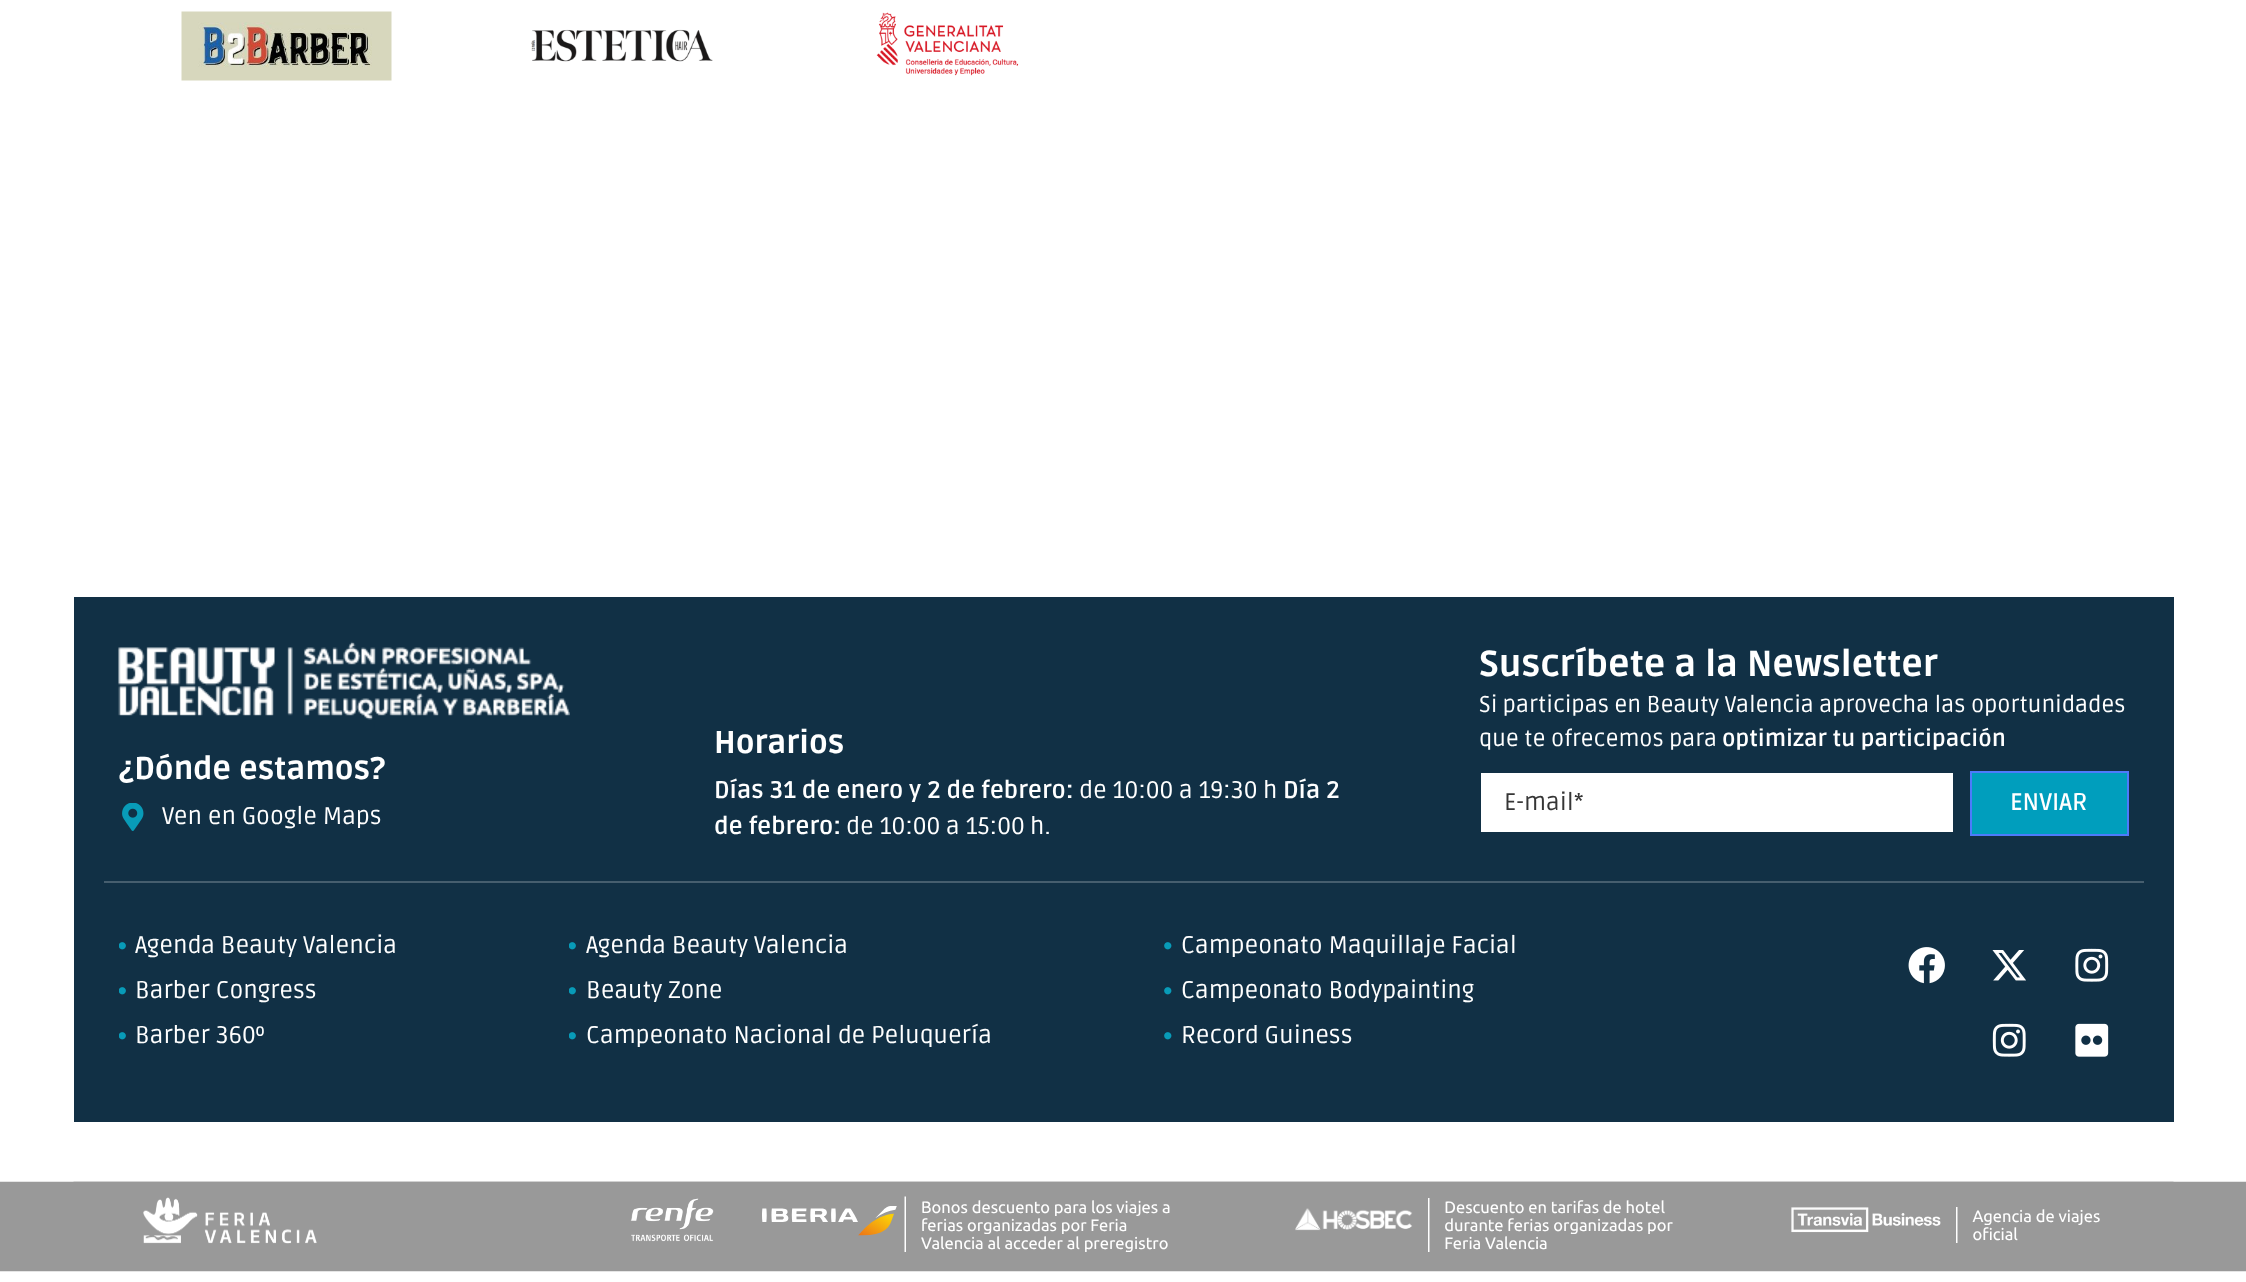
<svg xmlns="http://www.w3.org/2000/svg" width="2246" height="1282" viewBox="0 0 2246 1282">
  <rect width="100%" height="100%" fill="#ffffff"/>
  <image x="181" y="11" width="211" height="70" href="img1.png"/>
  <image x="531" y="29" width="182" height="33" href="img2.png"/>
  <image x="876" y="12" width="143" height="64" href="img3.png"/>
  <rect x="74" y="597" width="2100" height="525" fill="#113045"/>
  <image x="118" y="641" width="452" height="79" href="img4.png"/>
  <text x="119" y="779" font-family="Ruda" font-size="31.25" font-weight="800" fill="#ffffff">¿Dónde estamos?</text>
  <image x="122" y="803" width="22" height="28" href="img5.png"/>
  <text x="162" y="824" font-family="Ruda" font-size="24" fill="#ffffff">Ven en Google Maps</text>
  <text x="714" y="753" font-family="Ruda" font-size="31.25" font-weight="800" fill="#ffffff">Horarios</text>
  <text x="714" y="798" font-family="Ruda" font-size="24" font-weight="bold" fill="#ffffff">Días 31 de enero y 2 de febrero:</text>
  <text x="1079" y="798" font-family="Ruda" font-size="24" fill="#ffffff">de 10:00 a 19:30 h</text>
  <text x="1283" y="798" font-family="Ruda" font-size="24" font-weight="bold" fill="#ffffff">Día 2</text>
  <text x="714" y="834" font-family="Ruda" font-size="24" font-weight="bold" fill="#ffffff">de febrero:</text>
  <text x="846" y="834" font-family="Ruda" font-size="24" fill="#ffffff">de 10:00 a 15:00 h.</text>
  <text x="1479" y="676" font-family="Ruda" font-size="36" font-weight="800" fill="#ffffff">Suscríbete a la Newsletter</text>
  <text x="1479" y="712" font-family="Ruda" font-size="22.8" fill="#ffffff">Si participas en Beauty Valencia aprovecha las oportunidades</text>
  <text x="1479" y="746" font-family="Ruda" font-size="22.8" fill="#ffffff">que te ofrecemos para</text>
  <text x="1722" y="746" font-family="Ruda" font-size="22.8" font-weight="bold" fill="#ffffff">optimizar tu participación</text>
  <rect x="1481" y="773" width="472" height="59" fill="#ffffff"/>
  <text x="1504" y="810" font-family="Ruda" font-size="24" fill="#363636">E-mail*</text>
  <rect x="1971" y="772" width="157" height="63" fill="#009ebd" stroke="#4d7bfb" stroke-width="2"/>
  <text x="2010" y="810" font-family="Ruda" font-size="24" font-weight="600" fill="#ffffff">ENVIAR</text>
  <rect x="104" y="881" width="2040" height="2" fill="#465e6e"/>
  <image x="119" y="942" width="7" height="8" href="img6.png"/>
  <text x="135" y="953" font-family="Ruda" font-size="24" fill="#ffffff">Agenda Beauty Valencia</text>
  <image x="119" y="987" width="7" height="8" href="img6.png"/>
  <text x="135" y="998" font-family="Ruda" font-size="24" fill="#ffffff">Barber Congress</text>
  <image x="119" y="1032" width="7" height="8" href="img6.png"/>
  <text x="135" y="1043" font-family="Ruda" font-size="24" fill="#ffffff">Barber 360º</text>
  <image x="569" y="942" width="7" height="8" href="img6.png"/>
  <text x="586" y="953" font-family="Ruda" font-size="24" fill="#ffffff">Agenda Beauty Valencia</text>
  <image x="569" y="987" width="7" height="8" href="img6.png"/>
  <text x="586" y="998" font-family="Ruda" font-size="24" fill="#ffffff">Beauty Zone</text>
  <image x="569" y="1032" width="7" height="8" href="img6.png"/>
  <text x="586" y="1043" font-family="Ruda" font-size="24" fill="#ffffff">Campeonato Nacional de Peluquería</text>
  <image x="1164" y="942" width="8" height="8" href="img7.png"/>
  <text x="1181" y="953" font-family="Ruda" font-size="24" fill="#ffffff">Campeonato Maquillaje Facial</text>
  <image x="1164" y="987" width="8" height="8" href="img7.png"/>
  <text x="1181" y="998" font-family="Ruda" font-size="24" fill="#ffffff">Campeonato Bodypainting</text>
  <image x="1164" y="1032" width="8" height="8" href="img7.png"/>
  <text x="1181" y="1043" font-family="Ruda" font-size="24" fill="#ffffff">Record Guiness</text>
  <image x="1908" y="947" width="37" height="37" href="img8.png"/>
  <image x="1992" y="950" width="34" height="31" href="img9.png"/>
  <image x="2075" y="948" width="34" height="34" href="img10.png"/>
  <image x="1992" y="1023" width="34" height="34" href="img11.png"/>
  <image x="2075" y="1023" width="34" height="34" href="img12.png"/>
  <image x="0" y="1181" width="2246" height="91" href="img13.png"/>
</svg>
